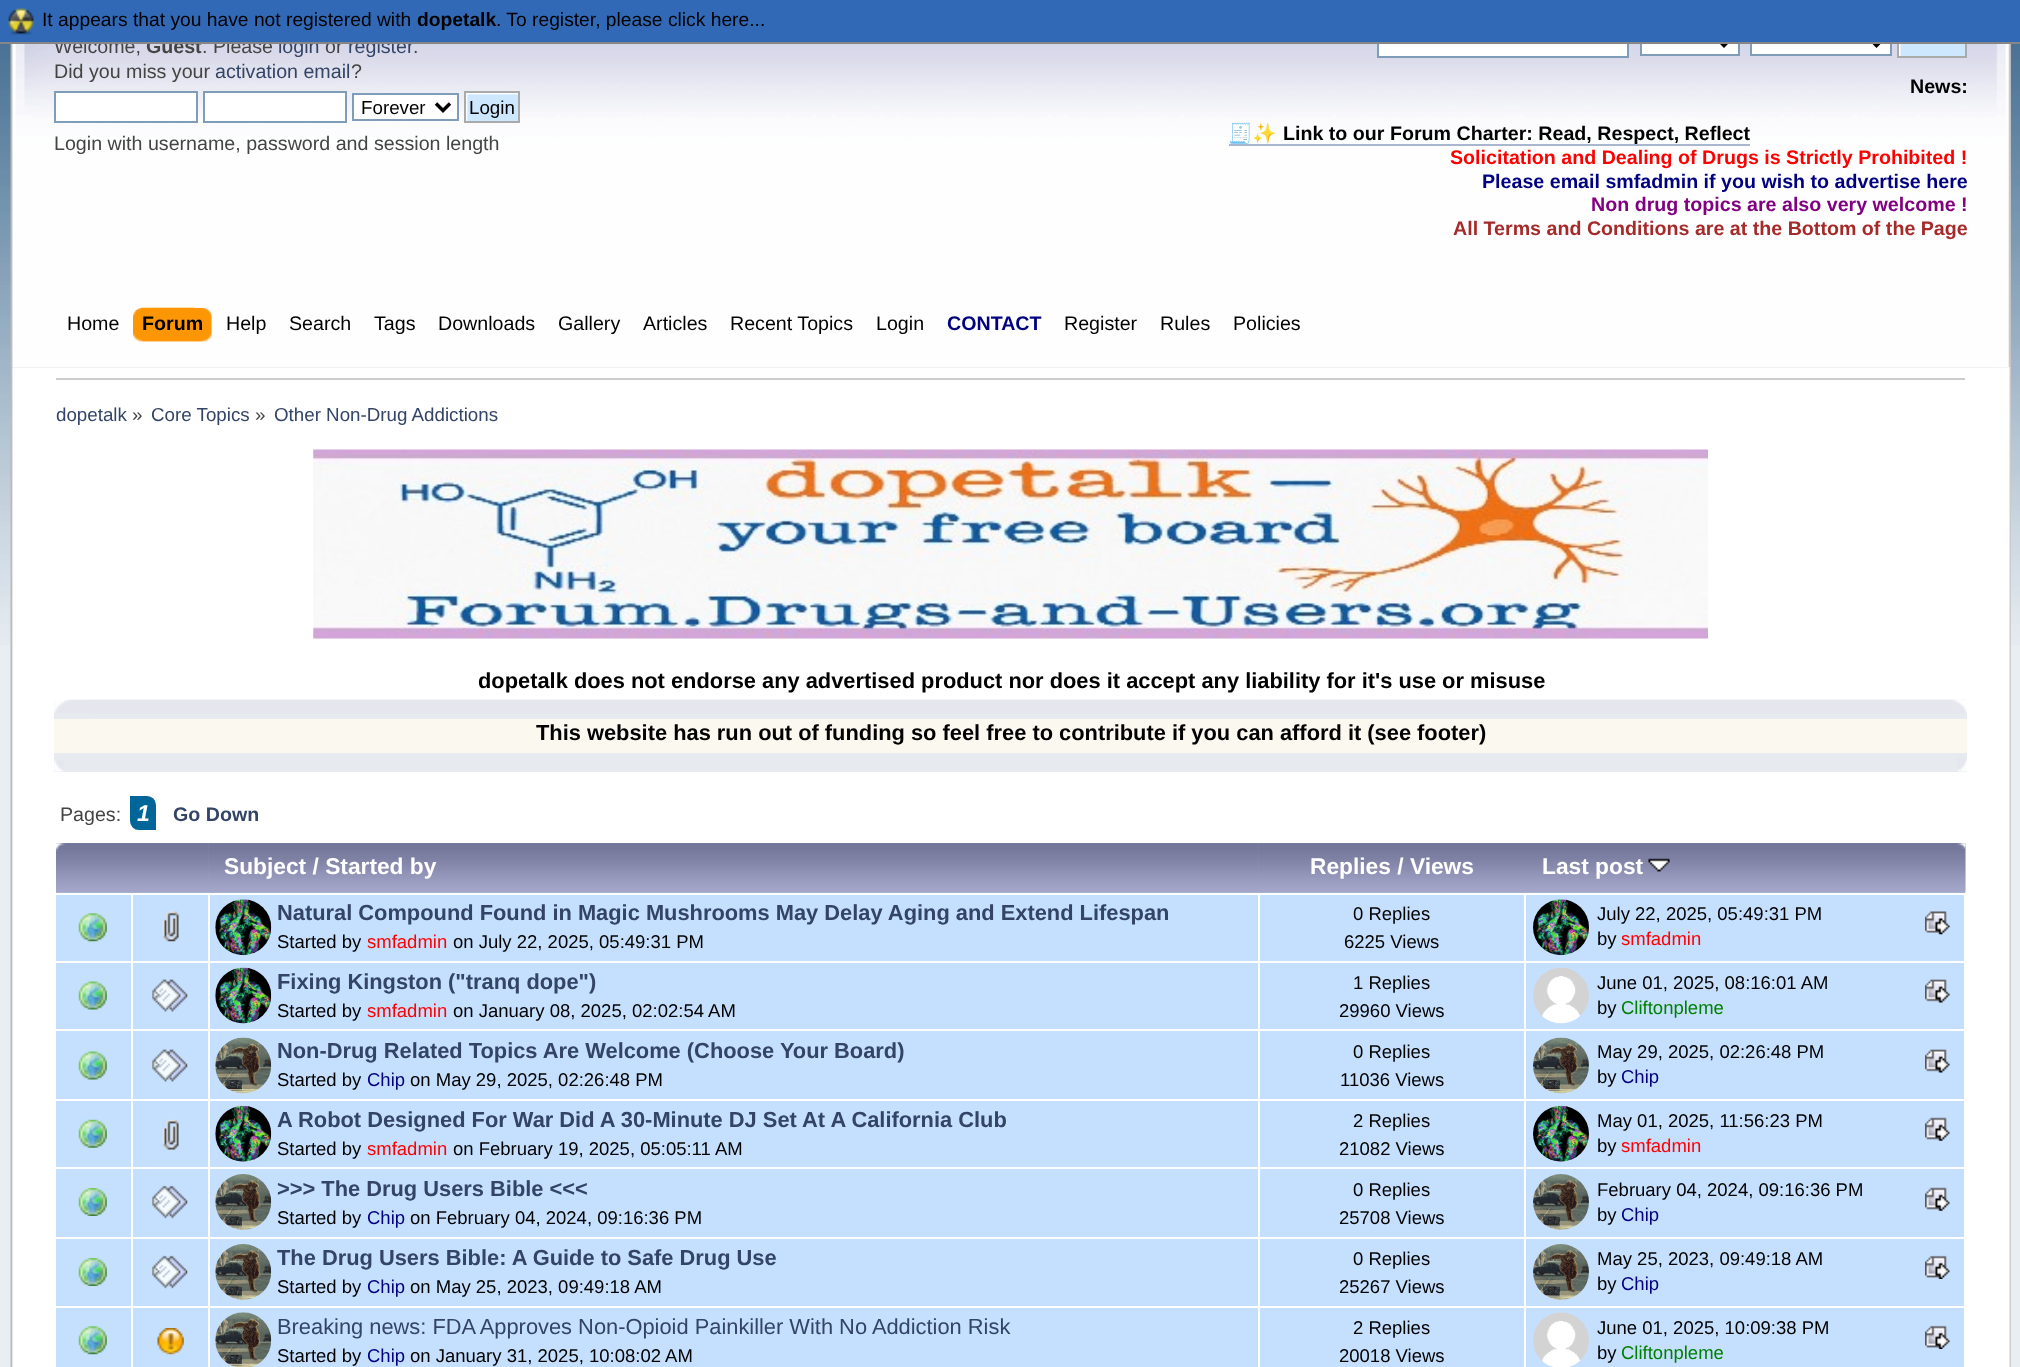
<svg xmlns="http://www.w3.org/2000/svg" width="2020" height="1367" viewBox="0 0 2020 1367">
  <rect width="100%" height="100%" fill="#e9eef2"/>
  <image x="0" y="44" width="2020" height="601" href="img1.png"/>
  <image x="10" y="44" width="2001" height="324" href="img40.png"/>
  <image x="1996" y="44" width="15" height="324" href="img41.png"/>
  <image x="10" y="367" width="2001" height="1000" href="img2.png"/>
  <image x="2009" y="367" width="2" height="1000" href="img3.png"/>
  <text x="54" y="53" font-family="Liberation Sans" font-size="19.65" fill="#444444">Welcome,</text>
  <text x="146" y="53" font-family="Liberation Sans" font-size="19.65" font-weight="bold" fill="#444444">Guest</text>
  <text x="202" y="53" font-family="Liberation Sans" font-size="19.65" fill="#444444">. Please</text>
  <text x="278" y="53" font-family="Liberation Sans" font-size="19.65" fill="#334466">login</text>
  <text x="348" y="53" font-family="Liberation Sans" font-size="19.65" fill="#334466">register</text>
  <rect x="1379" y="44" width="248" height="12" fill="#ffffff"/>
  <rect x="1378" y="27" width="250" height="30" fill="none" stroke="#7f9db9" stroke-width="2"/>
  <rect x="1642" y="44" width="96" height="10" fill="#ffffff"/>
  <rect x="1641" y="29" width="98" height="26" fill="none" stroke="#7f9db9" stroke-width="2"/>
  <path d="M1717 38.5L1724 45.5L1731 38.5" fill="none" stroke="#000000" stroke-width="3.5"/>
  <rect x="1752" y="44" width="138" height="10" fill="#ffffff"/>
  <rect x="1751" y="29" width="140" height="26" fill="none" stroke="#7f9db9" stroke-width="2"/>
  <path d="M1869.5 38.5L1876.5 45.5L1883.5 38.5" fill="none" stroke="#000000" stroke-width="3.5"/>
  <image x="1899" y="44" width="66" height="12" href="img43.png"/>
  <rect x="1898" y="27" width="68" height="30" fill="none" stroke="#aaaaaa" stroke-width="2"/>
  <rect x="0" y="0" width="2020" height="42" fill="#3169b6"/>
  <text x="325" y="53" font-family="Liberation Sans" font-size="19.65" fill="#444444">or</text>
  <rect x="0" y="42" width="2020" height="2" fill="#868686"/>
  <image x="8" y="8" width="26" height="27" href="img4.png"/>
  <text x="42" y="26" font-family="Liberation Sans" font-size="19.25" fill="#000000">It appears that you have not registered with</text>
  <text x="417" y="26" font-family="Liberation Sans" font-size="19.25" font-weight="bold" fill="#000000">dopetalk</text>
  <text x="496" y="26" font-family="Liberation Sans" font-size="19.25" fill="#000000">. To register, please click here...</text>
  <text x="60" y="821" font-family="Liberation Sans" font-size="19.65" fill="#444444">Pages:</text>
  <path d="M131 797H147C151.5 797 155 800.5 155 805V829H139C134.5 829 131 825.5 131 821Z" fill="#006699" stroke="#006699" stroke-width="2"/>
  <text x="137" y="821" font-family="Liberation Sans" font-size="23" font-weight="bold" font-style="italic" fill="#ffffff">1</text>
  <text x="173" y="821" font-family="Liberation Sans" font-size="19.65" font-weight="bold" fill="#334466">Go Down</text>
  <rect x="56" y="892" width="1909" height="1" fill="#a7b9cd"/>
  <image x="56" y="843" width="153" height="50" href="img5.png"/>
  <rect x="208" y="844" width="1050" height="48" fill="#a7b9cd"/>
  <image x="208" y="843" width="1051" height="50" href="img6.png"/>
  <text x="224" y="874" font-family="Liberation Sans" font-size="22.75" font-weight="bold" fill="#ffffff">Subject / Started by</text>
  <rect x="1258" y="844" width="268" height="48" fill="#a7b9cd"/>
  <image x="1258" y="843" width="268" height="50" href="img7.png"/>
  <text x="1310" y="874" font-family="Liberation Sans" font-size="22.75" font-weight="bold" fill="#ffffff">Replies / Views</text>
  <image x="1526" y="843" width="440" height="50" href="img8.png"/>
  <text x="1542" y="874" font-family="Liberation Sans" font-size="22.75" font-weight="bold" fill="#ffffff">Last post</text>
  <image x="1648" y="858" width="22" height="14" href="img9.png"/>
  <rect x="56" y="895" width="75" height="66" fill="#c5e0ff"/>
  <image x="78" y="913" width="29" height="29" href="img10.png"/>
  <rect x="133" y="895" width="75" height="66" fill="#c5e0ff"/>
  <image x="162" y="911" width="17" height="31" href="img11.png"/>
  <rect x="210" y="895" width="1048" height="66" fill="#c5e0ff"/>
  <image x="215" y="899" width="57" height="57" href="img12.png"/>
  <text x="277" y="920" font-family="Liberation Sans" font-size="21.85" font-weight="bold" fill="#334466">Natural Compound Found in Magic Mushrooms May Delay Aging and Extend Lifespan</text>
  <text x="277" y="948" font-family="Liberation Sans" font-size="18.5" fill="#000000">Started by</text>
  <text x="367" y="948" font-family="Liberation Sans" font-size="18.5" fill="#ff0000">smfadmin</text>
  <text x="453" y="948" font-family="Liberation Sans" font-size="18.5" fill="#000000">on July 22, 2025, 05:49:31 PM</text>
  <rect x="1260" y="895" width="264" height="66" fill="#c5e0ff"/>
  <text x="1353" y="920" font-family="Liberation Sans" font-size="18.5" fill="#000000">0 Replies</text>
  <text x="1344" y="948" font-family="Liberation Sans" font-size="18.5" fill="#000000">6225 Views</text>
  <rect x="1526" y="895" width="438" height="66" fill="#c5e0ff"/>
  <image x="1533" y="899" width="56" height="57" href="img13.png"/>
  <text x="1597" y="920" font-family="Liberation Sans" font-size="18.5" fill="#000000">July 22, 2025, 05:49:31 PM</text>
  <image x="1925" y="911" width="25" height="24" href="img14.png"/>
  <text x="1597" y="945" font-family="Liberation Sans" font-size="18.5" fill="#000000">by</text>
  <text x="1621" y="945" font-family="Liberation Sans" font-size="18.5" fill="#ff0000">smfadmin</text>
  <rect x="56" y="963" width="75" height="66" fill="#c5e0ff"/>
  <image x="78" y="981" width="29" height="29" href="img15.png"/>
  <rect x="133" y="963" width="75" height="66" fill="#c5e0ff"/>
  <image x="152" y="979" width="36" height="33" href="img16.png"/>
  <rect x="210" y="963" width="1048" height="66" fill="#c5e0ff"/>
  <image x="215" y="967" width="57" height="57" href="img17.png"/>
  <text x="277" y="989" font-family="Liberation Sans" font-size="21.85" font-weight="bold" fill="#334466">Fixing Kingston ("tranq dope")</text>
  <text x="277" y="1017" font-family="Liberation Sans" font-size="18.5" fill="#000000">Started by</text>
  <text x="367" y="1017" font-family="Liberation Sans" font-size="18.5" fill="#ff0000">smfadmin</text>
  <text x="453" y="1017" font-family="Liberation Sans" font-size="18.5" fill="#000000">on January 08, 2025, 02:02:54 AM</text>
  <rect x="1260" y="963" width="264" height="66" fill="#c5e0ff"/>
  <text x="1353" y="989" font-family="Liberation Sans" font-size="18.5" fill="#000000">1 Replies</text>
  <text x="1339" y="1017" font-family="Liberation Sans" font-size="18.5" fill="#000000">29960 Views</text>
  <rect x="1526" y="963" width="438" height="66" fill="#c5e0ff"/>
  <image x="1533" y="967" width="56" height="57" href="img18.png"/>
  <text x="1597" y="989" font-family="Liberation Sans" font-size="18.5" fill="#000000">June 01, 2025, 08:16:01 AM</text>
  <image x="1925" y="979" width="25" height="24" href="img19.png"/>
  <text x="1597" y="1014" font-family="Liberation Sans" font-size="18.5" fill="#000000">by</text>
  <text x="1621" y="1014" font-family="Liberation Sans" font-size="18.5" fill="#008000">Cliftonpleme</text>
  <rect x="56" y="1031" width="75" height="68" fill="#c5e0ff"/>
  <image x="78" y="1051" width="29" height="29" href="img15.png"/>
  <rect x="133" y="1031" width="75" height="68" fill="#c5e0ff"/>
  <image x="152" y="1049" width="36" height="33" href="img16.png"/>
  <rect x="210" y="1031" width="1048" height="68" fill="#c5e0ff"/>
  <image x="215" y="1037" width="57" height="57" href="img20.png"/>
  <text x="277" y="1058" font-family="Liberation Sans" font-size="21.85" font-weight="bold" fill="#334466">Non-Drug Related Topics Are Welcome (Choose Your Board)</text>
  <text x="277" y="1086" font-family="Liberation Sans" font-size="18.5" fill="#000000">Started by</text>
  <text x="367" y="1086" font-family="Liberation Sans" font-size="18.5" fill="#000080">Chip</text>
  <text x="410" y="1086" font-family="Liberation Sans" font-size="18.5" fill="#000000">on May 29, 2025, 02:26:48 PM</text>
  <rect x="1260" y="1031" width="264" height="68" fill="#c5e0ff"/>
  <text x="1353" y="1058" font-family="Liberation Sans" font-size="18.5" fill="#000000">0 Replies</text>
  <text x="1340" y="1086" font-family="Liberation Sans" font-size="18.5" fill="#000000">11036 Views</text>
  <rect x="1526" y="1031" width="438" height="68" fill="#c5e0ff"/>
  <image x="1533" y="1037" width="56" height="57" href="img21.png"/>
  <text x="1597" y="1058" font-family="Liberation Sans" font-size="18.5" fill="#000000">May 29, 2025, 02:26:48 PM</text>
  <image x="1925" y="1049" width="25" height="24" href="img19.png"/>
  <text x="1597" y="1083" font-family="Liberation Sans" font-size="18.5" fill="#000000">by</text>
  <text x="1621" y="1083" font-family="Liberation Sans" font-size="18.5" fill="#000080">Chip</text>
  <rect x="56" y="1101" width="75" height="66" fill="#c5e0ff"/>
  <image x="78" y="1119" width="29" height="29" href="img22.png"/>
  <rect x="133" y="1101" width="75" height="66" fill="#c5e0ff"/>
  <image x="162" y="1119" width="17" height="31" href="img23.png"/>
  <rect x="210" y="1101" width="1048" height="66" fill="#c5e0ff"/>
  <image x="215" y="1105" width="57" height="57" href="img24.png"/>
  <text x="277" y="1127" font-family="Liberation Sans" font-size="21.85" font-weight="bold" fill="#334466">A Robot Designed For War Did A 30-Minute DJ Set At A California Club</text>
  <text x="277" y="1155" font-family="Liberation Sans" font-size="18.5" fill="#000000">Started by</text>
  <text x="367" y="1155" font-family="Liberation Sans" font-size="18.5" fill="#ff0000">smfadmin</text>
  <text x="453" y="1155" font-family="Liberation Sans" font-size="18.5" fill="#000000">on February 19, 2025, 05:05:11 AM</text>
  <rect x="1260" y="1101" width="264" height="66" fill="#c5e0ff"/>
  <text x="1353" y="1127" font-family="Liberation Sans" font-size="18.5" fill="#000000">2 Replies</text>
  <text x="1339" y="1155" font-family="Liberation Sans" font-size="18.5" fill="#000000">21082 Views</text>
  <rect x="1526" y="1101" width="438" height="66" fill="#c5e0ff"/>
  <image x="1533" y="1105" width="56" height="57" href="img25.png"/>
  <text x="1597" y="1127" font-family="Liberation Sans" font-size="18.5" fill="#000000">May 01, 2025, 11:56:23 PM</text>
  <image x="1925" y="1117" width="25" height="24" href="img26.png"/>
  <text x="1597" y="1152" font-family="Liberation Sans" font-size="18.5" fill="#000000">by</text>
  <text x="1621" y="1152" font-family="Liberation Sans" font-size="18.5" fill="#ff0000">smfadmin</text>
  <rect x="56" y="1169" width="75" height="68" fill="#c5e0ff"/>
  <image x="78" y="1188" width="29" height="28" href="img27.png"/>
  <rect x="133" y="1169" width="75" height="68" fill="#c5e0ff"/>
  <image x="152" y="1185" width="36" height="34" href="img28.png"/>
  <rect x="210" y="1169" width="1048" height="68" fill="#c5e0ff"/>
  <image x="215" y="1174" width="57" height="56" href="img29.png"/>
  <text x="277" y="1196" font-family="Liberation Sans" font-size="21.85" font-weight="bold" fill="#334466">&gt;&gt;&gt; The Drug Users Bible &lt;&lt;&lt;</text>
  <text x="277" y="1224" font-family="Liberation Sans" font-size="18.5" fill="#000000">Started by</text>
  <text x="367" y="1224" font-family="Liberation Sans" font-size="18.5" fill="#000080">Chip</text>
  <text x="410" y="1224" font-family="Liberation Sans" font-size="18.5" fill="#000000">on February 04, 2024, 09:16:36 PM</text>
  <rect x="1260" y="1169" width="264" height="68" fill="#c5e0ff"/>
  <text x="1353" y="1196" font-family="Liberation Sans" font-size="18.5" fill="#000000">0 Replies</text>
  <text x="1339" y="1224" font-family="Liberation Sans" font-size="18.5" fill="#000000">25708 Views</text>
  <rect x="1526" y="1169" width="438" height="68" fill="#c5e0ff"/>
  <image x="1533" y="1174" width="56" height="56" href="img30.png"/>
  <text x="1597" y="1196" font-family="Liberation Sans" font-size="18.5" fill="#000000">February 04, 2024, 09:16:36 PM</text>
  <image x="1925" y="1187" width="25" height="24" href="img26.png"/>
  <text x="1597" y="1221" font-family="Liberation Sans" font-size="18.5" fill="#000000">by</text>
  <text x="1621" y="1221" font-family="Liberation Sans" font-size="18.5" fill="#000080">Chip</text>
  <rect x="56" y="1239" width="75" height="67" fill="#c5e0ff"/>
  <image x="78" y="1258" width="29" height="28" href="img27.png"/>
  <rect x="133" y="1239" width="75" height="67" fill="#c5e0ff"/>
  <image x="152" y="1255" width="36" height="34" href="img28.png"/>
  <rect x="210" y="1239" width="1048" height="67" fill="#c5e0ff"/>
  <image x="215" y="1244" width="57" height="56" href="img29.png"/>
  <text x="277" y="1265" font-family="Liberation Sans" font-size="21.85" font-weight="bold" fill="#334466">The Drug Users Bible: A Guide to Safe Drug Use</text>
  <text x="277" y="1293" font-family="Liberation Sans" font-size="18.5" fill="#000000">Started by</text>
  <text x="367" y="1293" font-family="Liberation Sans" font-size="18.5" fill="#000080">Chip</text>
  <text x="410" y="1293" font-family="Liberation Sans" font-size="18.5" fill="#000000">on May 25, 2023, 09:49:18 AM</text>
  <rect x="1260" y="1239" width="264" height="67" fill="#c5e0ff"/>
  <text x="1353" y="1265" font-family="Liberation Sans" font-size="18.5" fill="#000000">0 Replies</text>
  <text x="1339" y="1293" font-family="Liberation Sans" font-size="18.5" fill="#000000">25267 Views</text>
  <rect x="1526" y="1239" width="438" height="67" fill="#c5e0ff"/>
  <image x="1533" y="1244" width="56" height="56" href="img30.png"/>
  <text x="1597" y="1265" font-family="Liberation Sans" font-size="18.5" fill="#000000">May 25, 2023, 09:49:18 AM</text>
  <image x="1925" y="1255" width="25" height="24" href="img31.png"/>
  <text x="1597" y="1290" font-family="Liberation Sans" font-size="18.5" fill="#000000">by</text>
  <text x="1621" y="1290" font-family="Liberation Sans" font-size="18.5" fill="#000080">Chip</text>
  <rect x="56" y="1308" width="75" height="59" fill="#c5e0ff"/>
  <image x="78" y="1326" width="29" height="29" href="img10.png"/>
  <rect x="133" y="1308" width="75" height="59" fill="#c5e0ff"/>
  <image x="157" y="1328" width="27" height="27" href="img32.png"/>
  <rect x="210" y="1308" width="1048" height="59" fill="#c5e0ff"/>
  <image x="215" y="1312" width="57" height="55" href="img33.png"/>
  <text x="277" y="1334" font-family="Liberation Sans" font-size="21.85" fill="#334466">Breaking news: FDA Approves Non-Opioid Painkiller With No Addiction Risk</text>
  <text x="277" y="1362" font-family="Liberation Sans" font-size="18.5" fill="#000000">Started by</text>
  <text x="367" y="1362" font-family="Liberation Sans" font-size="18.5" fill="#000080">Chip</text>
  <text x="410" y="1362" font-family="Liberation Sans" font-size="18.5" fill="#000000">on January 31, 2025, 10:08:02 AM</text>
  <rect x="1260" y="1308" width="264" height="59" fill="#c5e0ff"/>
  <text x="1353" y="1334" font-family="Liberation Sans" font-size="18.5" fill="#000000">2 Replies</text>
  <text x="1339" y="1362" font-family="Liberation Sans" font-size="18.5" fill="#000000">20018 Views</text>
  <rect x="1526" y="1308" width="438" height="59" fill="#c5e0ff"/>
  <image x="1533" y="1312" width="56" height="55" href="img34.png"/>
  <text x="1597" y="1334" font-family="Liberation Sans" font-size="18.5" fill="#000000">June 01, 2025, 10:09:38 PM</text>
  <image x="1925" y="1325" width="25" height="24" href="img31.png"/>
  <text x="1597" y="1359" font-family="Liberation Sans" font-size="18.5" fill="#000000">by</text>
  <text x="1621" y="1359" font-family="Liberation Sans" font-size="18.5" fill="#008000">Cliftonpleme</text>
  <rect x="56" y="378" width="1909" height="2" fill="#cccccc"/>
  <text x="56" y="421" font-family="Liberation Sans" font-size="18.75" fill="#334466">dopetalk</text>
  <text x="132" y="421" font-family="Liberation Sans" font-size="18.75" fill="#444444">»</text>
  <text x="151" y="421" font-family="Liberation Sans" font-size="18.75" fill="#334466">Core Topics</text>
  <text x="255" y="421" font-family="Liberation Sans" font-size="18.75" fill="#444444">»</text>
  <text x="274" y="421" font-family="Liberation Sans" font-size="18.75" fill="#334466">Other Non-Drug Addictions</text>
  <image x="313" y="449" width="1395" height="190" href="img35.png"/>
  <text x="478" y="688" font-family="Liberation Sans" font-size="21.85" font-weight="bold" fill="#000000">dopetalk does not endorse any advertised product nor does it accept any liability for it's use or misuse</text>
  <rect x="54" y="700" width="1913" height="72" fill="#e7eaef"/>
  <image x="54" y="699" width="1913" height="14" href="img36.png"/>
  <image x="90" y="699" width="1877" height="15" href="img37.png"/>
  <rect x="54" y="719" width="1913" height="34" fill="#fbf8ef"/>
  <text x="536" y="740" font-family="Liberation Sans" font-size="21.85" font-weight="bold" fill="#000000">This website has run out of funding so feel free to contribute if you can afford it (see footer)</text>
  <image x="54" y="760" width="10" height="12" href="img38.png"/>
  <image x="1957" y="758" width="10" height="14" href="img39.png"/>
  <text x="413" y="53" font-family="Liberation Sans" font-size="19.65" fill="#444444">.</text>
  <text x="54" y="78" font-family="Liberation Sans" font-size="19.65" fill="#444444">Did you miss your</text>
  <text x="215" y="78" font-family="Liberation Sans" font-size="19.65" fill="#334466">activation email</text>
  <text x="351" y="78" font-family="Liberation Sans" font-size="19.65" fill="#444444">?</text>
  <rect x="55" y="92" width="142" height="30" fill="#ffffff" stroke="#7f9db9" stroke-width="2"/>
  <rect x="204" y="92" width="142" height="30" fill="#ffffff" stroke="#7f9db9" stroke-width="2"/>
  <rect x="353" y="94" width="105" height="26" fill="#ffffff" stroke="#7f9db9" stroke-width="2"/>
  <path d="M436 103.5L443 110.5L450 103.5" fill="none" stroke="#000000" stroke-width="3.5"/>
  <text x="361" y="114" font-family="Liberation Sans" font-size="18.75" fill="#000000">Forever</text>
  <image x="466" y="93" width="52" height="28" href="img42.png"/>
  <rect x="465" y="92" width="54" height="30" fill="none" stroke="#aaaaaa" stroke-width="2"/>
  <text x="469" y="114" font-family="Liberation Sans" font-size="18.75" fill="#000000">Login</text>
  <text x="54" y="150" font-family="Liberation Sans" font-size="19.65" fill="#444444">Login with username, password and session length</text>
  <text x="1910" y="93" font-family="Liberation Sans" font-size="19.65" font-weight="bold" fill="#000000">News:</text>
  <text x="1228" y="140" font-family="Noto Color Emoji" font-size="19.65" font-weight="bold" fill="#000000">🧾✨</text>
  <rect x="1229" y="144" width="521" height="2" fill="#a8b6cf"/>
  <text x="1283" y="140" font-family="Liberation Sans" font-size="19.65" font-weight="bold" fill="#000000">Link to our Forum Charter: Read, Respect, Reflect</text>
  <text x="1450" y="164" font-family="Liberation Sans" font-size="19.65" font-weight="bold" fill="#ff0000">Solicitation and Dealing of Drugs is Strictly Prohibited !</text>
  <text x="1482" y="188" font-family="Liberation Sans" font-size="19.65" font-weight="bold" fill="#000080">Please email smfadmin if you wish to advertise here</text>
  <text x="1591" y="211" font-family="Liberation Sans" font-size="19.65" font-weight="bold" fill="#800080">Non drug topics are also very welcome !</text>
  <text x="1453" y="235" font-family="Liberation Sans" font-size="19.65" font-weight="bold" fill="#a52a2a">All Terms and Conditions are at the Bottom of the Page</text>
  <text x="67" y="330" font-family="Liberation Sans" font-size="19.65" fill="#000000">Home</text>
  <image x="142" y="307" width="70" height="35" href="img44.png"/>
  <image x="132" y="307" width="71" height="35" href="img45.png"/>
  <text x="142" y="330" font-family="Liberation Sans" font-size="19.65" font-weight="bold" fill="#000000">Forum</text>
  <text x="226" y="330" font-family="Liberation Sans" font-size="19.65" fill="#000000">Help</text>
  <text x="289" y="330" font-family="Liberation Sans" font-size="19.65" fill="#000000">Search</text>
  <text x="374" y="330" font-family="Liberation Sans" font-size="19.65" fill="#000000">Tags</text>
  <text x="438" y="330" font-family="Liberation Sans" font-size="19.65" fill="#000000">Downloads</text>
  <text x="558" y="330" font-family="Liberation Sans" font-size="19.65" fill="#000000">Gallery</text>
  <text x="643" y="330" font-family="Liberation Sans" font-size="19.65" fill="#000000">Articles</text>
  <text x="730" y="330" font-family="Liberation Sans" font-size="19.65" fill="#000000">Recent Topics</text>
  <text x="876" y="330" font-family="Liberation Sans" font-size="19.65" fill="#000000">Login</text>
  <text x="947" y="330" font-family="Liberation Sans" font-size="19.65" font-weight="bold" fill="#000080">CONTACT</text>
  <text x="1064" y="330" font-family="Liberation Sans" font-size="19.65" fill="#000000">Register</text>
  <text x="1160" y="330" font-family="Liberation Sans" font-size="19.65" fill="#000000">Rules</text>
  <text x="1233" y="330" font-family="Liberation Sans" font-size="19.65" fill="#000000">Policies</text>
</svg>
